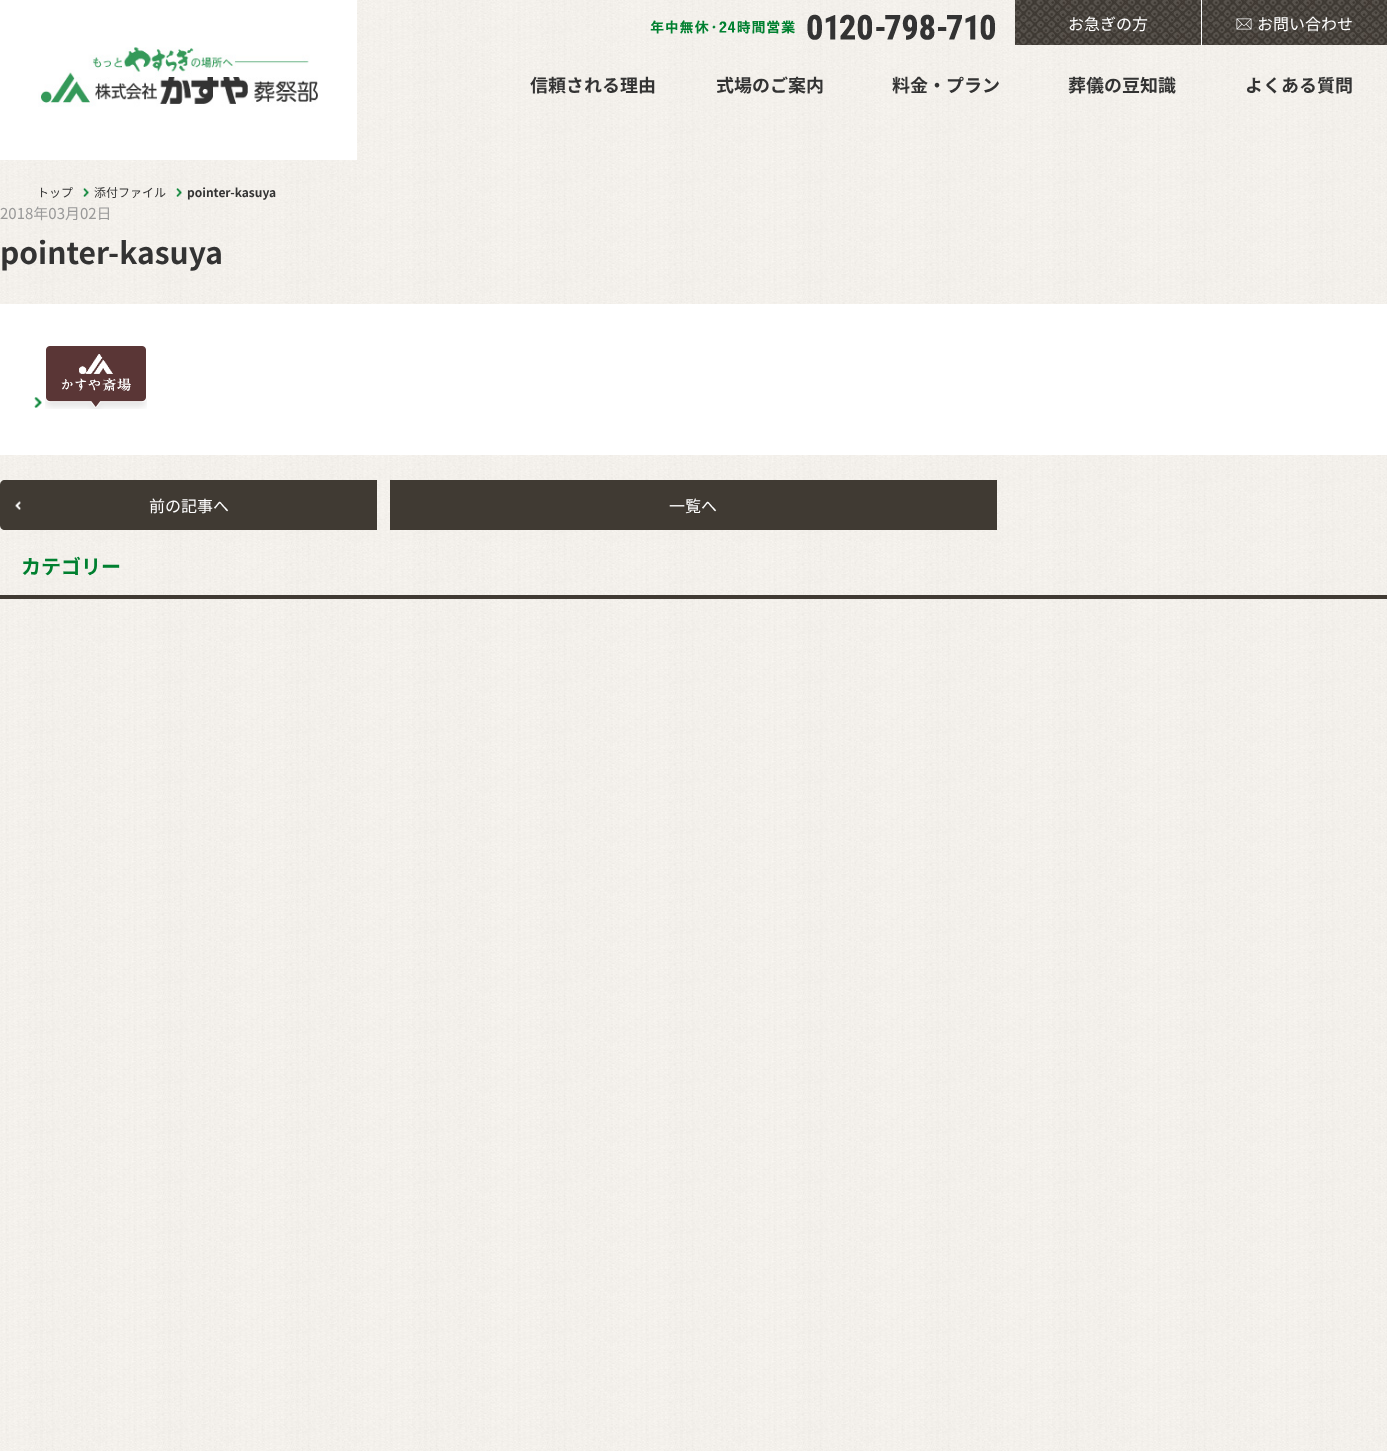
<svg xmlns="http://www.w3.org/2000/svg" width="1387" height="1451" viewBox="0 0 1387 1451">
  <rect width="100%" height="100%" fill="#ffffff"/>
  <image x="0" y="0" width="1387" height="1451" href="img1.png"/>
  <rect x="0" y="0" width="357" height="160" fill="#ffffff"/>
  <image x="38" y="47" width="280" height="60" href="img2.png"/>
  <image x="650" y="14" width="345" height="26" href="img3.png"/>
  <rect x="1201" y="0" width="1" height="45" fill="#ffffff"/>
  <image x="1015" y="0" width="186" height="45" href="img4.png"/>
  <text x="1068" y="30" font-family="Noto Sans JP" font-size="16" fill="#ffffff">お急ぎの方</text>
  <image x="1202" y="0" width="185" height="45" href="img5.png"/>
  <image x="1236" y="18" width="16" height="12" href="img6.png"/>
  <text x="1257" y="30" font-family="Noto Sans JP" font-size="16" fill="#ffffff">お問い合わせ</text>
  <text x="530" y="92" font-family="Noto Sans JP" font-size="18" font-weight="bold" fill="#333333">信頼される理由</text>
  <text x="716" y="92" font-family="Noto Sans JP" font-size="18" font-weight="bold" fill="#333333">式場のご案内</text>
  <text x="892" y="92" font-family="Noto Sans JP" font-size="18" font-weight="bold" fill="#333333">料金・プラン</text>
  <text x="1068" y="92" font-family="Noto Sans JP" font-size="18" font-weight="bold" fill="#333333">葬儀の豆知識</text>
  <text x="1245" y="92" font-family="Noto Sans JP" font-size="18" font-weight="bold" fill="#333333">よくある質問</text>
  <text x="37" y="197" font-family="Noto Sans JP" font-size="12" fill="#333333">トップ</text>
  <image x="83" y="188" width="6" height="9" href="img7.png"/>
  <text x="94" y="197" font-family="Noto Sans JP" font-size="12" fill="#333333">添付ファイル</text>
  <image x="176" y="188" width="6" height="9" href="img8.png"/>
  <text x="187" y="197" font-family="Noto Sans JP" font-size="12" font-weight="bold" fill="#333333">pointer-kasuya</text>
  <text x="0" y="219" font-family="Noto Sans JP" font-size="15" fill="#999999">2018年03月02日</text>
  <text x="0" y="264" font-family="Noto Sans JP" font-size="30" font-weight="bold" fill="#333333">pointer-kasuya</text>
  <rect x="0" y="304" width="1387" height="151" fill="#ffffff"/>
  <image x="34" y="397" width="8" height="11" href="img9.png"/>
  <image x="45" y="346" width="102" height="63" href="img10.png"/>
  <path d="M5 480H377V530H5C2 530 0 528 0 525V485C0 482 2 480 5 480Z" fill="#403a33"/>
  <image x="15" y="501" width="6" height="9" href="img11.png"/>
  <text x="149" y="512" font-family="Noto Sans JP" font-size="16" fill="#ffffff">前の記事へ</text>
  <rect x="390" y="480" width="607" height="50" fill="#403a33"/>
  <text x="669" y="512" font-family="Noto Sans JP" font-size="16" fill="#ffffff">一覧へ</text>
  <rect x="0" y="595" width="1387" height="4" fill="#403a33"/>
  <text x="21" y="574" font-family="Noto Sans JP" font-size="20" font-weight="bold" fill="#008030">カテゴリー</text>
</svg>
